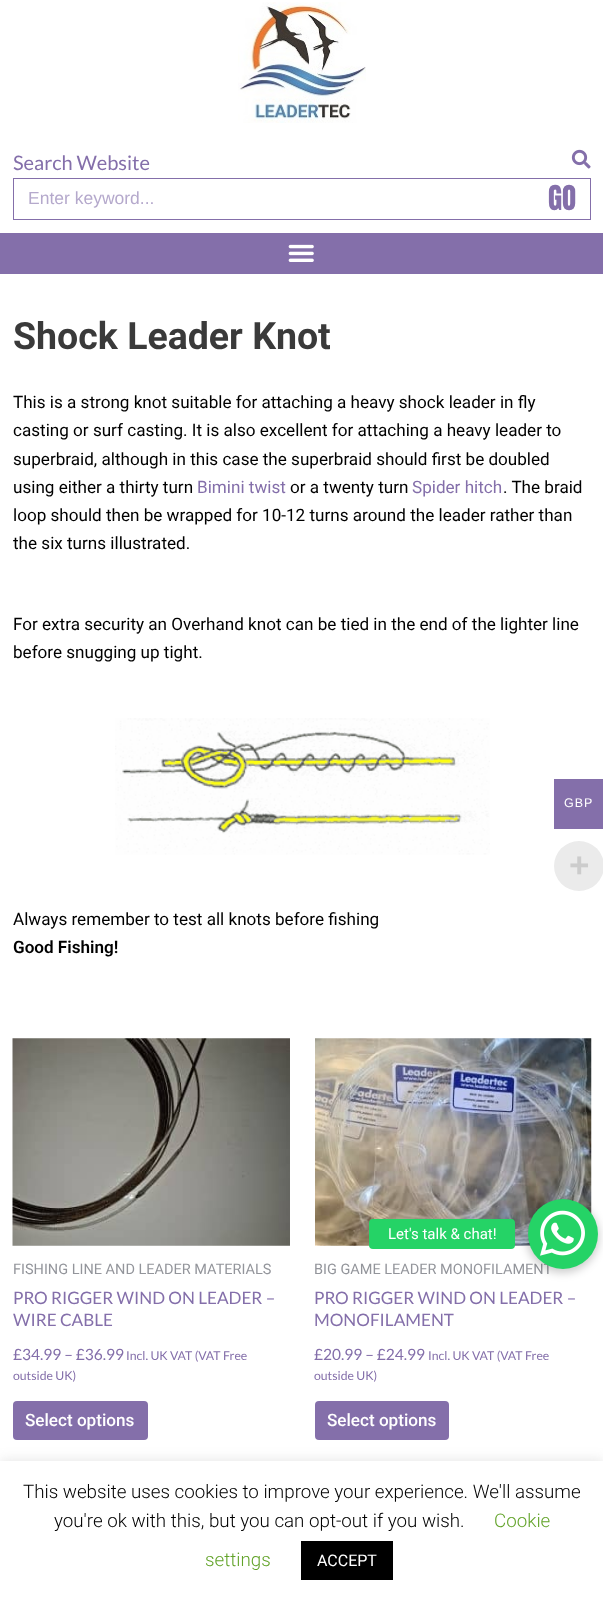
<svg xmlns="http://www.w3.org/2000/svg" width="603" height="1601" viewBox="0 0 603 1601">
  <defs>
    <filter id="blur1" x="-50%" y="-200%" width="200%" height="500%"><feGaussianBlur stdDeviation="4"/></filter>
    <filter id="blur2" x="-50%" y="-200%" width="200%" height="500%"><feGaussianBlur stdDeviation="6"/></filter>
  </defs>
  <rect width="100%" height="100%" fill="#ffffff"/>
  <image x="238" y="2" width="128" height="121" href="img1.png"/>
  <text x="13" y="170" font-family="Lato" font-size="20" fill="#846faa">Search Website</text>
  <image x="571" y="149" width="20" height="20" href="img2.png"/>
  <rect x="13.5" y="178.5" width="577" height="41" fill="none" stroke="#846faa"/>
  <text x="28" y="204" font-family="Liberation Sans" font-size="17.5" fill="#b5a9cc">Enter keyword...</text>
  <text x="548" y="210" font-family="Anton" font-size="29" fill="#846faa">GO</text>
  <rect x="0" y="233" width="603" height="41" fill="#846faa"/>
  <image x="288" y="244" width="26" height="18" href="img3.png"/>
  <text x="13" y="349" font-family="Roboto" font-size="37.5" font-weight="bold" fill="#3a3a3a">Shock Leader Knot</text>
  <text x="13" y="408" font-family="Roboto" font-size="17.1" fill="#000000">This is a strong knot suitable for attaching a heavy shock leader in fly</text>
  <text x="13" y="436" font-family="Roboto" font-size="17.1" fill="#000000">casting or surf casting. It is also excellent for attaching a heavy leader to</text>
  <text x="13" y="465" font-family="Roboto" font-size="17.1" fill="#000000">superbraid, although in this case the superbraid should first be doubled</text>
  <text x="13" y="493" font-family="Roboto" font-size="17.1" fill="#000000">using either a thirty turn</text>
  <text x="197" y="493" font-family="Roboto" font-size="17.1" fill="#846faa">Bimini twist</text>
  <text x="290" y="493" font-family="Roboto" font-size="17.1" fill="#000000">or a twenty turn</text>
  <text x="412" y="493" font-family="Roboto" font-size="17.1" fill="#846faa">Spider hitch</text>
  <text x="503" y="493" font-family="Roboto" font-size="17.1" fill="#000000">. The braid</text>
  <text x="13" y="521" font-family="Roboto" font-size="17.1" fill="#000000">loop should then be wrapped for 10-12 turns around the leader rather than</text>
  <text x="13" y="549" font-family="Roboto" font-size="17.1" fill="#000000">the six turns illustrated.</text>
  <text x="13" y="630" font-family="Roboto" font-size="17.1" fill="#000000">For extra security an Overhand knot can be tied in the end of the lighter line</text>
  <text x="13" y="658" font-family="Roboto" font-size="17.1" fill="#000000">before snugging up tight.</text>
  <image x="115" y="718" width="375" height="137" href="img4.png"/>
  <text x="13" y="925" font-family="Roboto" font-size="17.1" fill="#000000">Always remember to test all knots before fishing</text>
  <text x="13" y="953" font-family="Roboto" font-size="17.1" font-weight="600" fill="#000000">Good Fishing!</text>
  <image x="12" y="1038" width="278" height="208" href="img5.png"/>
  <text x="13" y="1274" font-family="Roboto" font-size="14.5" fill="#93959b">FISHING LINE AND LEADER MATERIALS</text>
  <text x="13" y="1304" font-family="Lato" font-size="17.1" fill="#846faa">PRO RIGGER WIND ON LEADER –</text>
  <text x="13" y="1326" font-family="Lato" font-size="17.1" fill="#846faa">WIRE CABLE</text>
  <text x="13" y="1360" font-family="Lato" font-size="15.5" fill="#846faa">£34.99 – £36.99</text>
  <text x="126" y="1360" font-family="Lato" font-size="12.25" fill="#846faa">Incl. UK VAT (VAT Free</text>
  <text x="13" y="1380" font-family="Lato" font-size="12.25" fill="#846faa">outside UK)</text>
  <rect x="13" y="1401" width="135" height="39" rx="4" fill="#846faa"/>
  <text x="25" y="1426" font-family="Roboto" font-size="17.1" font-weight="500" fill="#ffffff">Select options</text>
  <image x="315" y="1038" width="277" height="208" href="img6.png"/>
  <text x="314" y="1274" font-family="Roboto" font-size="14.5" fill="#93959b">BIG GAME LEADER MONOFILAMENT</text>
  <text x="314" y="1304" font-family="Lato" font-size="17.1" fill="#846faa">PRO RIGGER WIND ON LEADER –</text>
  <text x="314" y="1326" font-family="Lato" font-size="17.1" fill="#846faa">MONOFILAMENT</text>
  <text x="314" y="1360" font-family="Lato" font-size="15.5" fill="#846faa">£20.99 – £24.99</text>
  <text x="428" y="1360" font-family="Lato" font-size="12.25" fill="#846faa">Incl. UK VAT (VAT Free</text>
  <text x="314" y="1380" font-family="Lato" font-size="12.25" fill="#846faa">outside UK)</text>
  <rect x="315" y="1401" width="134" height="39" rx="4" fill="#846faa"/>
  <text x="327" y="1426" font-family="Roboto" font-size="17.1" font-weight="500" fill="#ffffff">Select options</text>
  <rect x="554" y="779" width="49" height="50" fill="#846faa"/>
  <text x="564" y="807" font-family="Liberation Sans" font-size="12.5" letter-spacing="1" fill="#ffffff">GBP</text>
  <circle cx="579" cy="866" r="25" fill="#ebebeb"/>
  <text x="569" y="877" font-family="Liberation Sans" font-size="35" font-weight="bold" fill="#cccccc">+</text>
  <rect x="526" y="1200" width="73" height="73" rx="36.5" fill="#000000" fill-opacity="0.2" filter="url(#blur1)"/>
  <circle cx="563" cy="1234" r="35" fill="#25d366"/>
  <rect x="369" y="1219" width="146" height="30" rx="4" fill="#25d366"/>
  <text x="388" y="1239" font-family="Roboto" font-size="15" fill="#ffffff">Let's talk &amp; chat!</text>
  <image x="540" y="1210" width="45" height="46" href="img7.png"/>
  <rect x="0" y="1460" width="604" height="140" fill="#acabab" fill-opacity="0.3" filter="url(#blur2)"/>
  <rect x="0" y="1461" width="603" height="140" fill="#ffffff"/>
  <text x="23" y="1498" font-family="Roboto" font-size="18.75" font-weight="300" fill="#000000">This website uses cookies to improve your experience. We'll assume</text>
  <text x="54" y="1527" font-family="Roboto" font-size="18.75" font-weight="300" fill="#000000">you're ok with this, but you can opt-out if you wish.</text>
  <text x="494" y="1527" font-family="Roboto" font-size="18.75" font-weight="300" fill="#62a329">Cookie</text>
  <text x="205" y="1566" font-family="Roboto" font-size="18.75" font-weight="300" fill="#62a329">settings</text>
  <rect x="301" y="1541" width="92" height="39" fill="#000000"/>
  <text x="317" y="1566" font-family="Roboto" font-size="16" fill="#ffffff">ACCEPT</text>
</svg>
